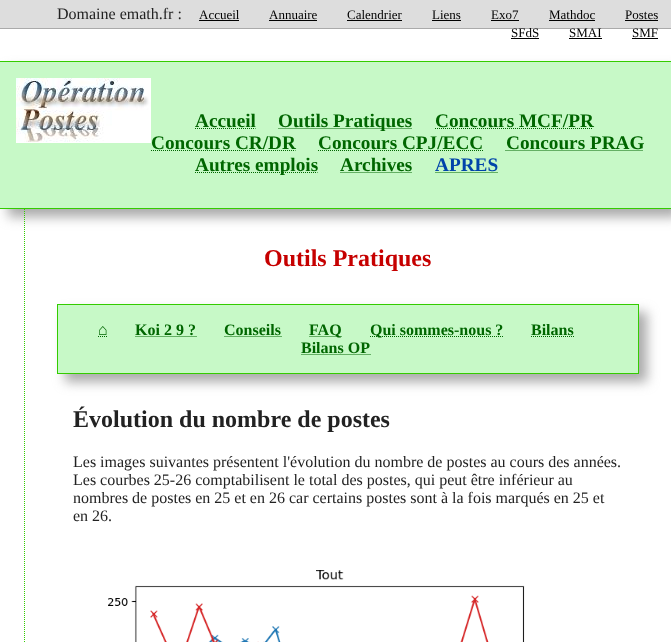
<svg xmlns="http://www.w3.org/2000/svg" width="671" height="642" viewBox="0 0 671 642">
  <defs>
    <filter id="blur1" x="-50%" y="-200%" width="200%" height="500%"><feGaussianBlur stdDeviation="6"/></filter>
  </defs>
  <rect width="100%" height="100%" fill="#ffffff"/>
  <rect x="0" y="0" width="671" height="28" fill="#dddddd"/>
  <rect x="0" y="28" width="671" height="1" fill="#aaaaaa"/>
  <text x="57" y="19" font-family="Liberation Serif" font-size="16" fill="#222222">Domaine emath.fr :</text>
  <text x="199" y="19" font-family="Liberation Serif" font-size="13" fill="#000000">Accueil</text>
  <rect x="199" y="20" width="40" height="1" fill="#000000"/>
  <text x="269" y="19" font-family="Liberation Serif" font-size="13" fill="#000000">Annuaire</text>
  <rect x="269" y="20" width="48" height="1" fill="#000000"/>
  <text x="347" y="19" font-family="Liberation Serif" font-size="13" fill="#000000">Calendrier</text>
  <rect x="347" y="20" width="55" height="1" fill="#000000"/>
  <text x="432" y="19" font-family="Liberation Serif" font-size="13" fill="#000000">Liens</text>
  <rect x="432" y="20" width="29" height="1" fill="#000000"/>
  <text x="491" y="19" font-family="Liberation Serif" font-size="13" fill="#000000">Exo7</text>
  <rect x="491" y="20" width="28" height="1" fill="#000000"/>
  <text x="549" y="19" font-family="Liberation Serif" font-size="13" fill="#000000">Mathdoc</text>
  <rect x="549" y="20" width="46" height="1" fill="#000000"/>
  <text x="625" y="19" font-family="Liberation Serif" font-size="13" fill="#000000">Postes</text>
  <rect x="625" y="20" width="33" height="1" fill="#000000"/>
  <text x="511" y="37" font-family="Liberation Serif" font-size="13" fill="#000000">SFdS</text>
  <rect x="511" y="38" width="28" height="1" fill="#000000"/>
  <text x="569" y="37" font-family="Liberation Serif" font-size="13" fill="#000000">SMAI</text>
  <rect x="569" y="38" width="33" height="1" fill="#000000"/>
  <text x="632" y="37" font-family="Liberation Serif" font-size="13" fill="#000000">SMF</text>
  <rect x="632" y="38" width="26" height="1" fill="#000000"/>
  <rect x="8" y="69" width="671" height="148" fill="#aaaaaa" filter="url(#blur1)"/>
  <rect x="0" y="62" width="671" height="146" fill="#c7f9c7"/>
  <rect x="0" y="61" width="671" height="1" fill="#33cc00"/>
  <rect x="0" y="208" width="671" height="1" fill="#33cc00"/>
  <image x="16" y="78" width="135" height="65" href="img1.png"/>
  <text x="195" y="127" font-family="Liberation Serif" font-size="19.25" font-weight="bold" fill="#006600">Accueil</text>
  <path d="M195 128.5H255.5" fill="none" stroke="#006600" stroke-dasharray="1 1"/>
  <path d="M278.5 128.5H412" fill="none" stroke="#006600" stroke-dasharray="1 1"/>
  <text x="278" y="127" font-family="Liberation Serif" font-size="19.25" font-weight="bold" fill="#006600">Outils Pratiques</text>
  <text x="435" y="127" font-family="Liberation Serif" font-size="19.25" font-weight="bold" fill="#006600">Concours MCF/PR</text>
  <path d="M435 128.5H593" fill="none" stroke="#006600" stroke-dasharray="1 1"/>
  <text x="151" y="149" font-family="Liberation Serif" font-size="19.25" font-weight="bold" fill="#006600">Concours CR/DR</text>
  <path d="M151 150.5H295.5" fill="none" stroke="#006600" stroke-dasharray="1 1"/>
  <text x="318" y="149" font-family="Liberation Serif" font-size="19.25" font-weight="bold" fill="#006600">Concours CPJ/ECC</text>
  <path d="M318 150.5H483" fill="none" stroke="#006600" stroke-dasharray="1 1"/>
  <text x="506" y="149" font-family="Liberation Serif" font-size="19.25" font-weight="bold" fill="#006600">Concours PRAG</text>
  <path d="M505.5 150.5H643.5" fill="none" stroke="#006600" stroke-dasharray="1 1"/>
  <path d="M195 172.5H317.5" fill="none" stroke="#006600" stroke-dasharray="1 1"/>
  <text x="195" y="171" font-family="Liberation Serif" font-size="19.25" font-weight="bold" fill="#006600">Autres emplois</text>
  <text x="340" y="171" font-family="Liberation Serif" font-size="19.25" font-weight="bold" fill="#006600">Archives</text>
  <path d="M340.5 172.5H412.5" fill="none" stroke="#006600" stroke-dasharray="1 1"/>
  <text x="435" y="171" font-family="Liberation Serif" font-size="19.25" font-weight="bold" fill="#0044aa">APRES</text>
  <path d="M435.5 172.5H498" fill="none" stroke="#006600" stroke-dasharray="1 1"/>
  <path d="M24.5 209V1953" fill="none" stroke="#33cc00" stroke-dasharray="1 1"/>
  <text x="264" y="266" font-family="Liberation Serif" font-size="24" font-weight="bold" fill="#c60000">Outils Pratiques</text>
  <rect x="65" y="312" width="582" height="70" fill="#aaaaaa" filter="url(#blur1)"/>
  <rect x="57.5" y="304.5" width="581" height="69" fill="#c7f9c7" stroke="#33cc00"/>
  <text x="98" y="335" font-family="Liberation Serif" font-size="16" font-weight="bold" fill="#006600">⌂</text>
  <path d="M98 336.5H107.5" fill="none" stroke="#006600" stroke-dasharray="1 1"/>
  <text x="135" y="335" font-family="Liberation Serif" font-size="16" font-weight="bold" fill="#006600">Koi 2 9 ?</text>
  <path d="M135.5 336.5H196.5" fill="none" stroke="#006600" stroke-dasharray="1 1"/>
  <text x="224" y="335" font-family="Liberation Serif" font-size="16" font-weight="bold" fill="#006600">Conseils</text>
  <path d="M224.5 336.5H281.5" fill="none" stroke="#006600" stroke-dasharray="1 1"/>
  <path d="M309.5 336.5H342" fill="none" stroke="#006600" stroke-dasharray="1 1"/>
  <text x="309" y="335" font-family="Liberation Serif" font-size="16" font-weight="bold" fill="#006600">FAQ</text>
  <path d="M370 336.5H503" fill="none" stroke="#006600" stroke-dasharray="1 1"/>
  <text x="370" y="335" font-family="Liberation Serif" font-size="16" font-weight="bold" fill="#006600">Qui sommes-nous ?</text>
  <text x="531" y="335" font-family="Liberation Serif" font-size="16" font-weight="bold" fill="#006600">Bilans</text>
  <path d="M531 336.5H574" fill="none" stroke="#006600" stroke-dasharray="1 1"/>
  <text x="301" y="353" font-family="Liberation Serif" font-size="16" font-weight="bold" fill="#006600">Bilans OP</text>
  <path d="M301.5 354.5H370.5" fill="none" stroke="#006600" stroke-dasharray="1 1"/>
  <text x="73" y="427" font-family="Liberation Serif" font-size="24" font-weight="bold" fill="#222222">Évolution du nombre de postes</text>
  <text x="73" y="467" font-family="Liberation Serif" font-size="16" fill="#222222">Les images suivantes présentent l'évolution du nombre de postes au cours des années.</text>
  <text x="73" y="485" font-family="Liberation Serif" font-size="16" fill="#222222">Les courbes 25-26 comptabilisent le total des postes, qui peut être inférieur au</text>
  <text x="73" y="503" font-family="Liberation Serif" font-size="16" fill="#222222">nombres de postes en 25 et en 26 car certains postes sont à la fois marqués en 25 et</text>
  <text x="73" y="521" font-family="Liberation Serif" font-size="16" fill="#222222">en 26.</text>
  <image x="108" y="570" width="417" height="72" href="img2.png"/>
</svg>
